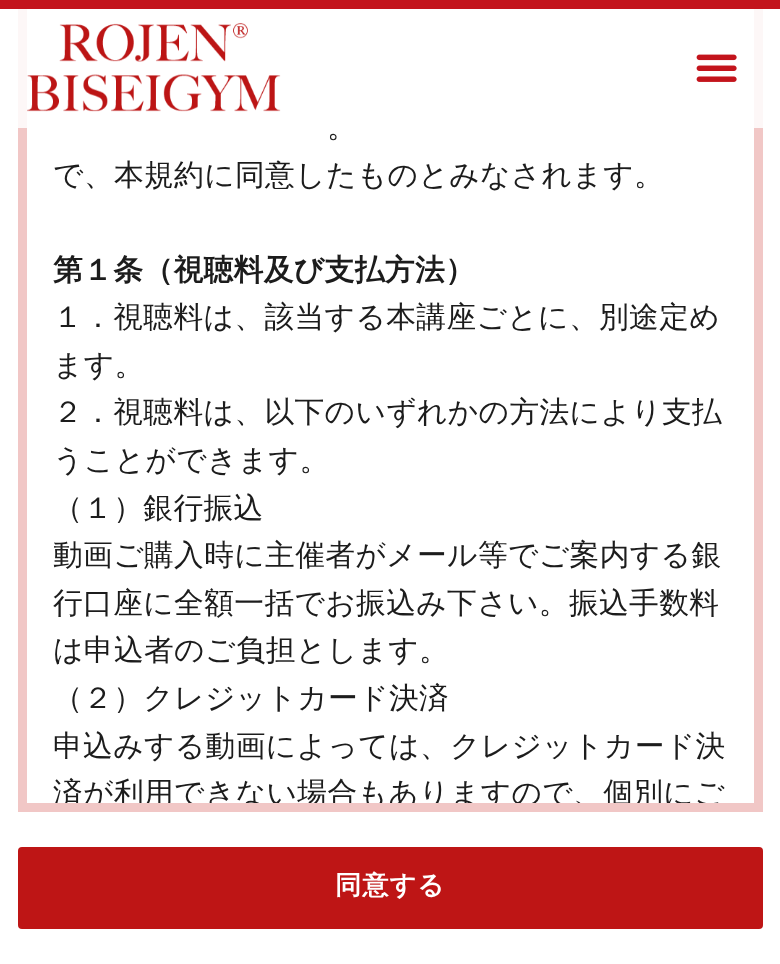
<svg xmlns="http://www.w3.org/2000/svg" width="780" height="964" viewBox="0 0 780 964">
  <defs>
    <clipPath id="clip1"><rect x="26" y="0" width="728" height="803"/></clipPath>
  </defs>
  <rect width="100%" height="100%" fill="#ffffff"/>
  <rect x="22.5" y="-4.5" width="736" height="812" fill="none" stroke="#f1c7c6" stroke-width="9"/>
  <rect x="18" y="9" width="745" height="119" fill="#ffffff" fill-opacity="0.86"/>
  <rect x="0" y="0" width="780" height="9" fill="#c3141c"/>
  <image x="27" y="23" width="254" height="89" href="img1.png"/>
  <image x="696" y="54" width="41" height="28" href="img2.png"/>
  <text x="327" y="137" font-family="WenQuanYi Zen Hei" font-size="29.75" font-weight="500" letter-spacing="0.35" fill="#1c1c1c">。</text>
  <text x="53" y="185" font-family="WenQuanYi Zen Hei" font-size="29.75" font-weight="500" letter-spacing="0.35" fill="#1c1c1c">で、本規約に同意したものとみなされます。</text>
  <text x="53" y="280" font-family="WenQuanYi Zen Hei" font-size="29.75" font-weight="bold" letter-spacing="0.35" fill="#1c1c1c">第１条（視聴料及び支払方法）</text>
  <text x="53" y="327" font-family="WenQuanYi Zen Hei" font-size="29.75" font-weight="500" letter-spacing="0.35" fill="#1c1c1c">１．視聴料は、該当する本講座ごとに、別途定め</text>
  <text x="53" y="375" font-family="WenQuanYi Zen Hei" font-size="29.75" font-weight="500" letter-spacing="0.35" fill="#1c1c1c">ます。</text>
  <text x="53" y="422" font-family="WenQuanYi Zen Hei" font-size="29.75" font-weight="500" letter-spacing="0.35" fill="#1c1c1c">２．視聴料は、以下のいずれかの方法により支払</text>
  <text x="53" y="470" font-family="WenQuanYi Zen Hei" font-size="29.75" font-weight="500" letter-spacing="0.35" fill="#1c1c1c">うことができます。</text>
  <text x="53" y="518" font-family="WenQuanYi Zen Hei" font-size="29.75" font-weight="500" letter-spacing="0.35" fill="#1c1c1c">（１）銀行振込</text>
  <text x="53" y="565" font-family="WenQuanYi Zen Hei" font-size="29.75" font-weight="500" letter-spacing="0.35" fill="#1c1c1c">動画ご購入時に主催者がメール等でご案内する銀</text>
  <text x="53" y="613" font-family="WenQuanYi Zen Hei" font-size="29.75" font-weight="500" letter-spacing="0.35" fill="#1c1c1c">行口座に全額一括でお振込み下さい。振込手数料</text>
  <text x="53" y="660" font-family="WenQuanYi Zen Hei" font-size="29.75" font-weight="500" letter-spacing="0.35" fill="#1c1c1c">は申込者のご負担とします。</text>
  <text x="53" y="708" font-family="WenQuanYi Zen Hei" font-size="29.75" font-weight="500" letter-spacing="0.35" fill="#1c1c1c">（２）クレジットカード決済</text>
  <text x="53" y="756" font-family="WenQuanYi Zen Hei" font-size="29.75" font-weight="500" letter-spacing="0.35" fill="#1c1c1c">申込みする動画によっては、クレジットカード決</text>
  <g clip-path="url(#clip1)">
    <text x="53" y="803" font-family="WenQuanYi Zen Hei" font-size="29.75" font-weight="500" letter-spacing="0.35" fill="#1c1c1c">済が利用できない場合もありますので、個別にご</text>
  </g>
  <rect x="18" y="847" width="745" height="82" rx="4" fill="#be1515"/>
  <text x="335" y="894" font-family="WenQuanYi Zen Hei" font-size="26.25" font-weight="bold" letter-spacing="1" fill="#ffffff">同意する</text>
</svg>
